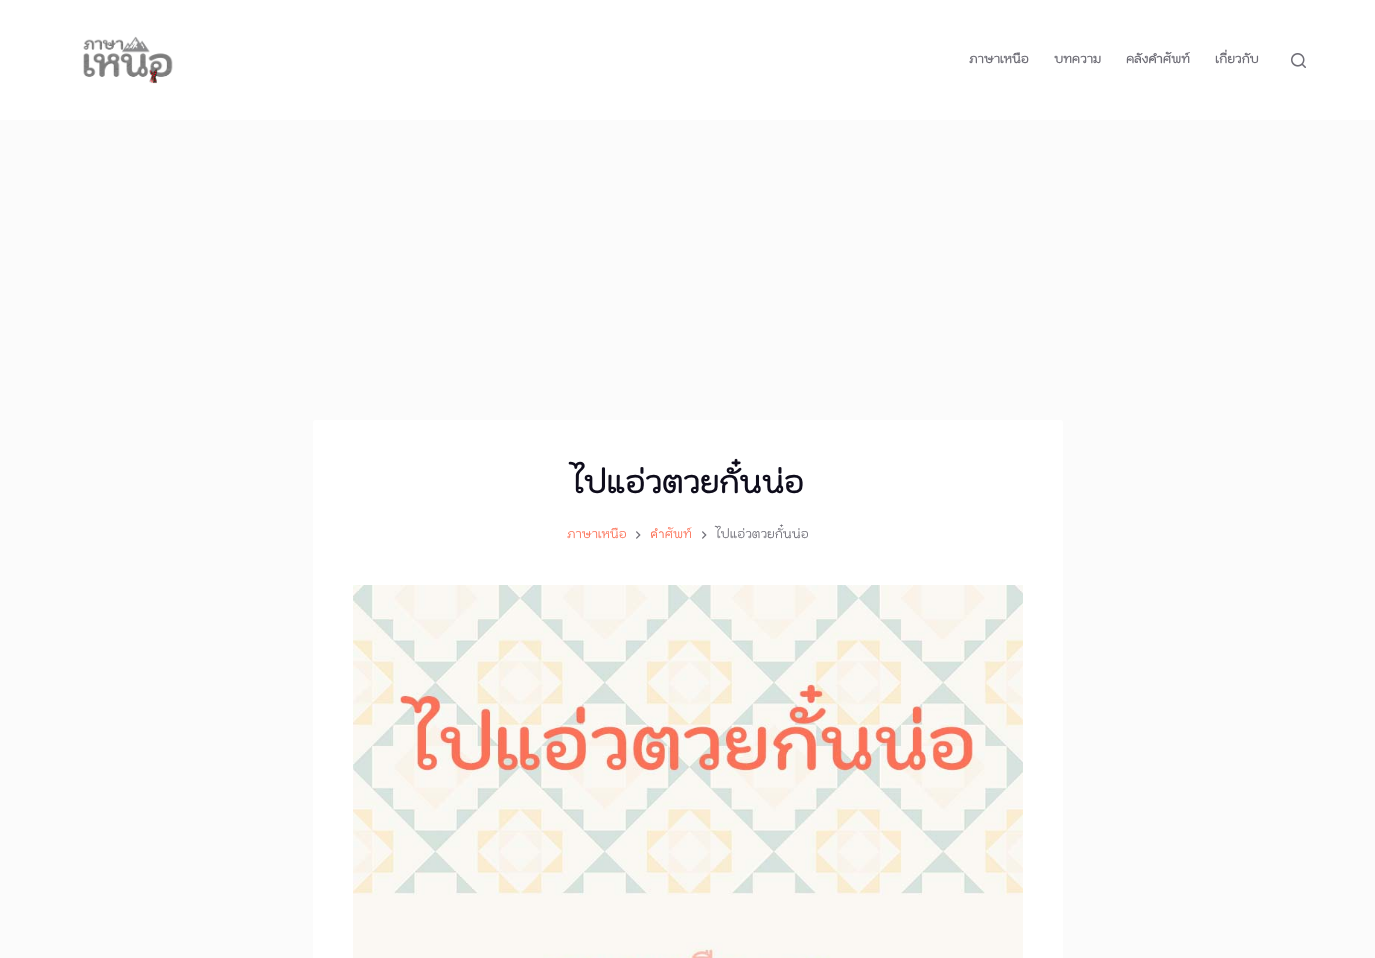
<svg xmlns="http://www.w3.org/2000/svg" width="1375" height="958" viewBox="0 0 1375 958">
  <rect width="100%" height="100%" fill="#fbfbfb"/>
  <rect x="0" y="0" width="1375" height="120" fill="#ffffff"/>
  <image x="83" y="36" width="90" height="48" href="img1.png"/>
  <text x="969" y="63" font-family="Kodchasan" font-size="12" font-weight="bold" fill="#6e6d76">ภาษาเหนือ</text>
  <text x="1054" y="63" font-family="Kodchasan" font-size="12" font-weight="bold" fill="#6e6d76">บทความ</text>
  <text x="1126" y="63" font-family="Kodchasan" font-size="12" font-weight="bold" fill="#6e6d76">คลังคำศัพท์</text>
  <text x="1215" y="63" font-family="Kodchasan" font-size="12" font-weight="bold" fill="#6e6d76">เกี่ยวกับ</text>
  <image x="1291" y="53" width="15" height="15" href="img2.png"/>
  <rect x="313" y="420" width="750" height="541" rx="3" fill="#ffffff"/>
  <text x="572" y="493" font-family="Kodchasan" font-size="30" font-weight="bold" fill="#0e0c1b">ไปแอ่วตวยกั๋นน่อ</text>
  <text x="567" y="538" font-family="Kodchasan" font-size="12" fill="#fb7258">ภาษาเหนือ</text>
  <image x="636" y="531" width="5" height="8" href="img3.png"/>
  <text x="650" y="538" font-family="Kodchasan" font-size="12" fill="#fb7258">คำศัพท์</text>
  <image x="702" y="531" width="5" height="8" href="img3.png"/>
  <text x="716" y="538" font-family="Kodchasan" font-size="12" fill="#6e6d76">ไปแอ่วตวยกั๋นน่อ</text>
  <image x="353" y="585" width="670" height="373" href="img4.png"/>
</svg>
